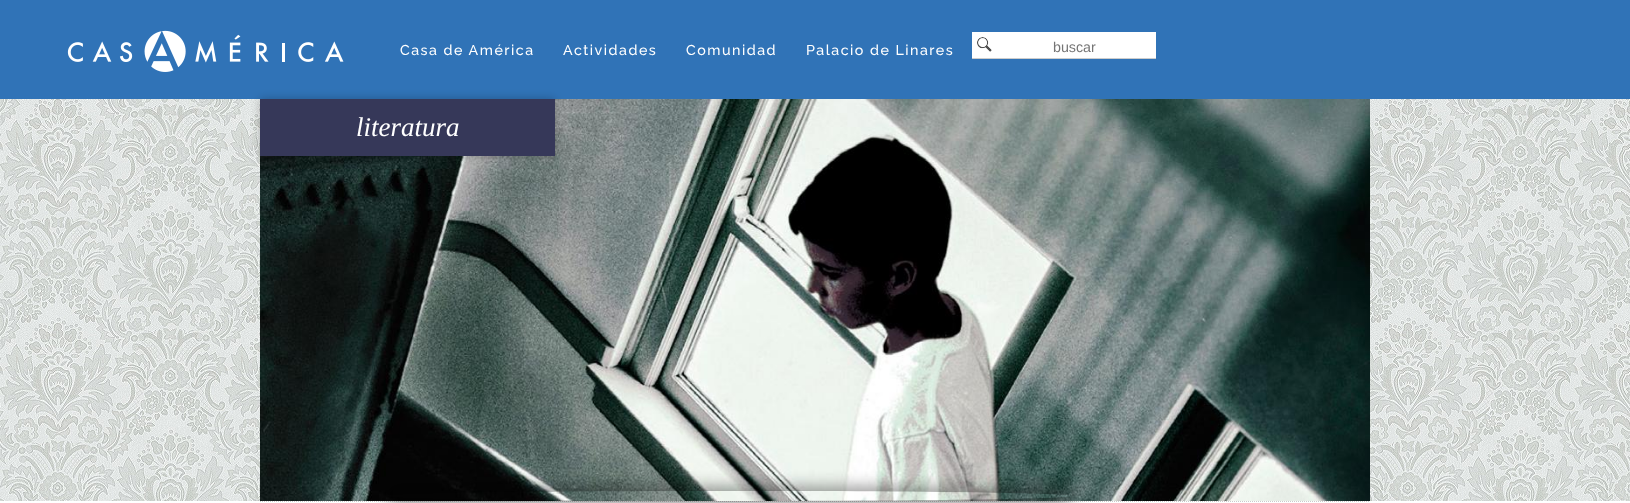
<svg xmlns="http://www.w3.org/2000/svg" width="1630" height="503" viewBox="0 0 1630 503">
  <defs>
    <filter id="blur1" x="-50%" y="-200%" width="200%" height="500%"><feGaussianBlur stdDeviation="5"/></filter>
    <clipPath id="clip1"><path d="M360 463H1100V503H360ZM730 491C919 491 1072 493 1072 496C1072 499 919 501 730 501C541 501 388 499 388 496C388 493 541 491 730 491Z" clip-rule="evenodd"/></clipPath>
    <filter id="blur2" x="-50%" y="-200%" width="200%" height="500%"><feGaussianBlur stdDeviation="9"/></filter>
  </defs>
  <rect width="100%" height="100%" fill="#ffffff"/>
  <rect x="0" y="0" width="1630" height="99" fill="#3073b7"/>
  <image x="67" y="30" width="277" height="42" href="img1.png"/>
  <text x="400" y="55" font-family="Raleway" font-size="14.25" font-weight="500" letter-spacing="1.5" fill="#ffffff">Casa de América</text>
  <text x="563" y="55" font-family="Raleway" font-size="14.25" font-weight="500" letter-spacing="1.5" fill="#ffffff">Actividades</text>
  <text x="686" y="55" font-family="Raleway" font-size="14.25" font-weight="500" letter-spacing="1.5" fill="#ffffff">Comunidad</text>
  <text x="806" y="55" font-family="Raleway" font-size="14.25" font-weight="500" letter-spacing="1.5" fill="#ffffff">Palacio de Linares</text>
  <rect x="972" y="32" width="184" height="26" fill="#ffffff"/>
  <image x="977" y="37" width="15" height="15" href="img2.png"/>
  <rect x="972" y="58" width="184" height="1" fill="#cccccc"/>
  <text x="1053" y="52" font-family="Liberation Sans" font-size="14.25" fill="#757575">buscar</text>
  <image x="0" y="99" width="1630" height="402" href="img3.png"/>
  <image x="260" y="99" width="1110" height="402" href="img4.png"/>
  <rect x="260" y="99" width="295" height="57" fill="#000000" fill-opacity="0.25" filter="url(#blur1)"/>
  <rect x="260" y="99" width="295" height="57" fill="#363859"/>
  <text x="356" y="136" font-family="Liberation Serif" font-size="27" font-style="italic" fill="#ffffff">literatura</text>
  <path d="M260 501.5H1370" fill="none" stroke="#cccccc" stroke-dasharray="1 1"/>
  <g clip-path="url(#clip1)">
    <rect x="388" y="491" width="684" height="10" rx="5" fill="#000000" fill-opacity="0.75" filter="url(#blur2)"/>
  </g>
</svg>
